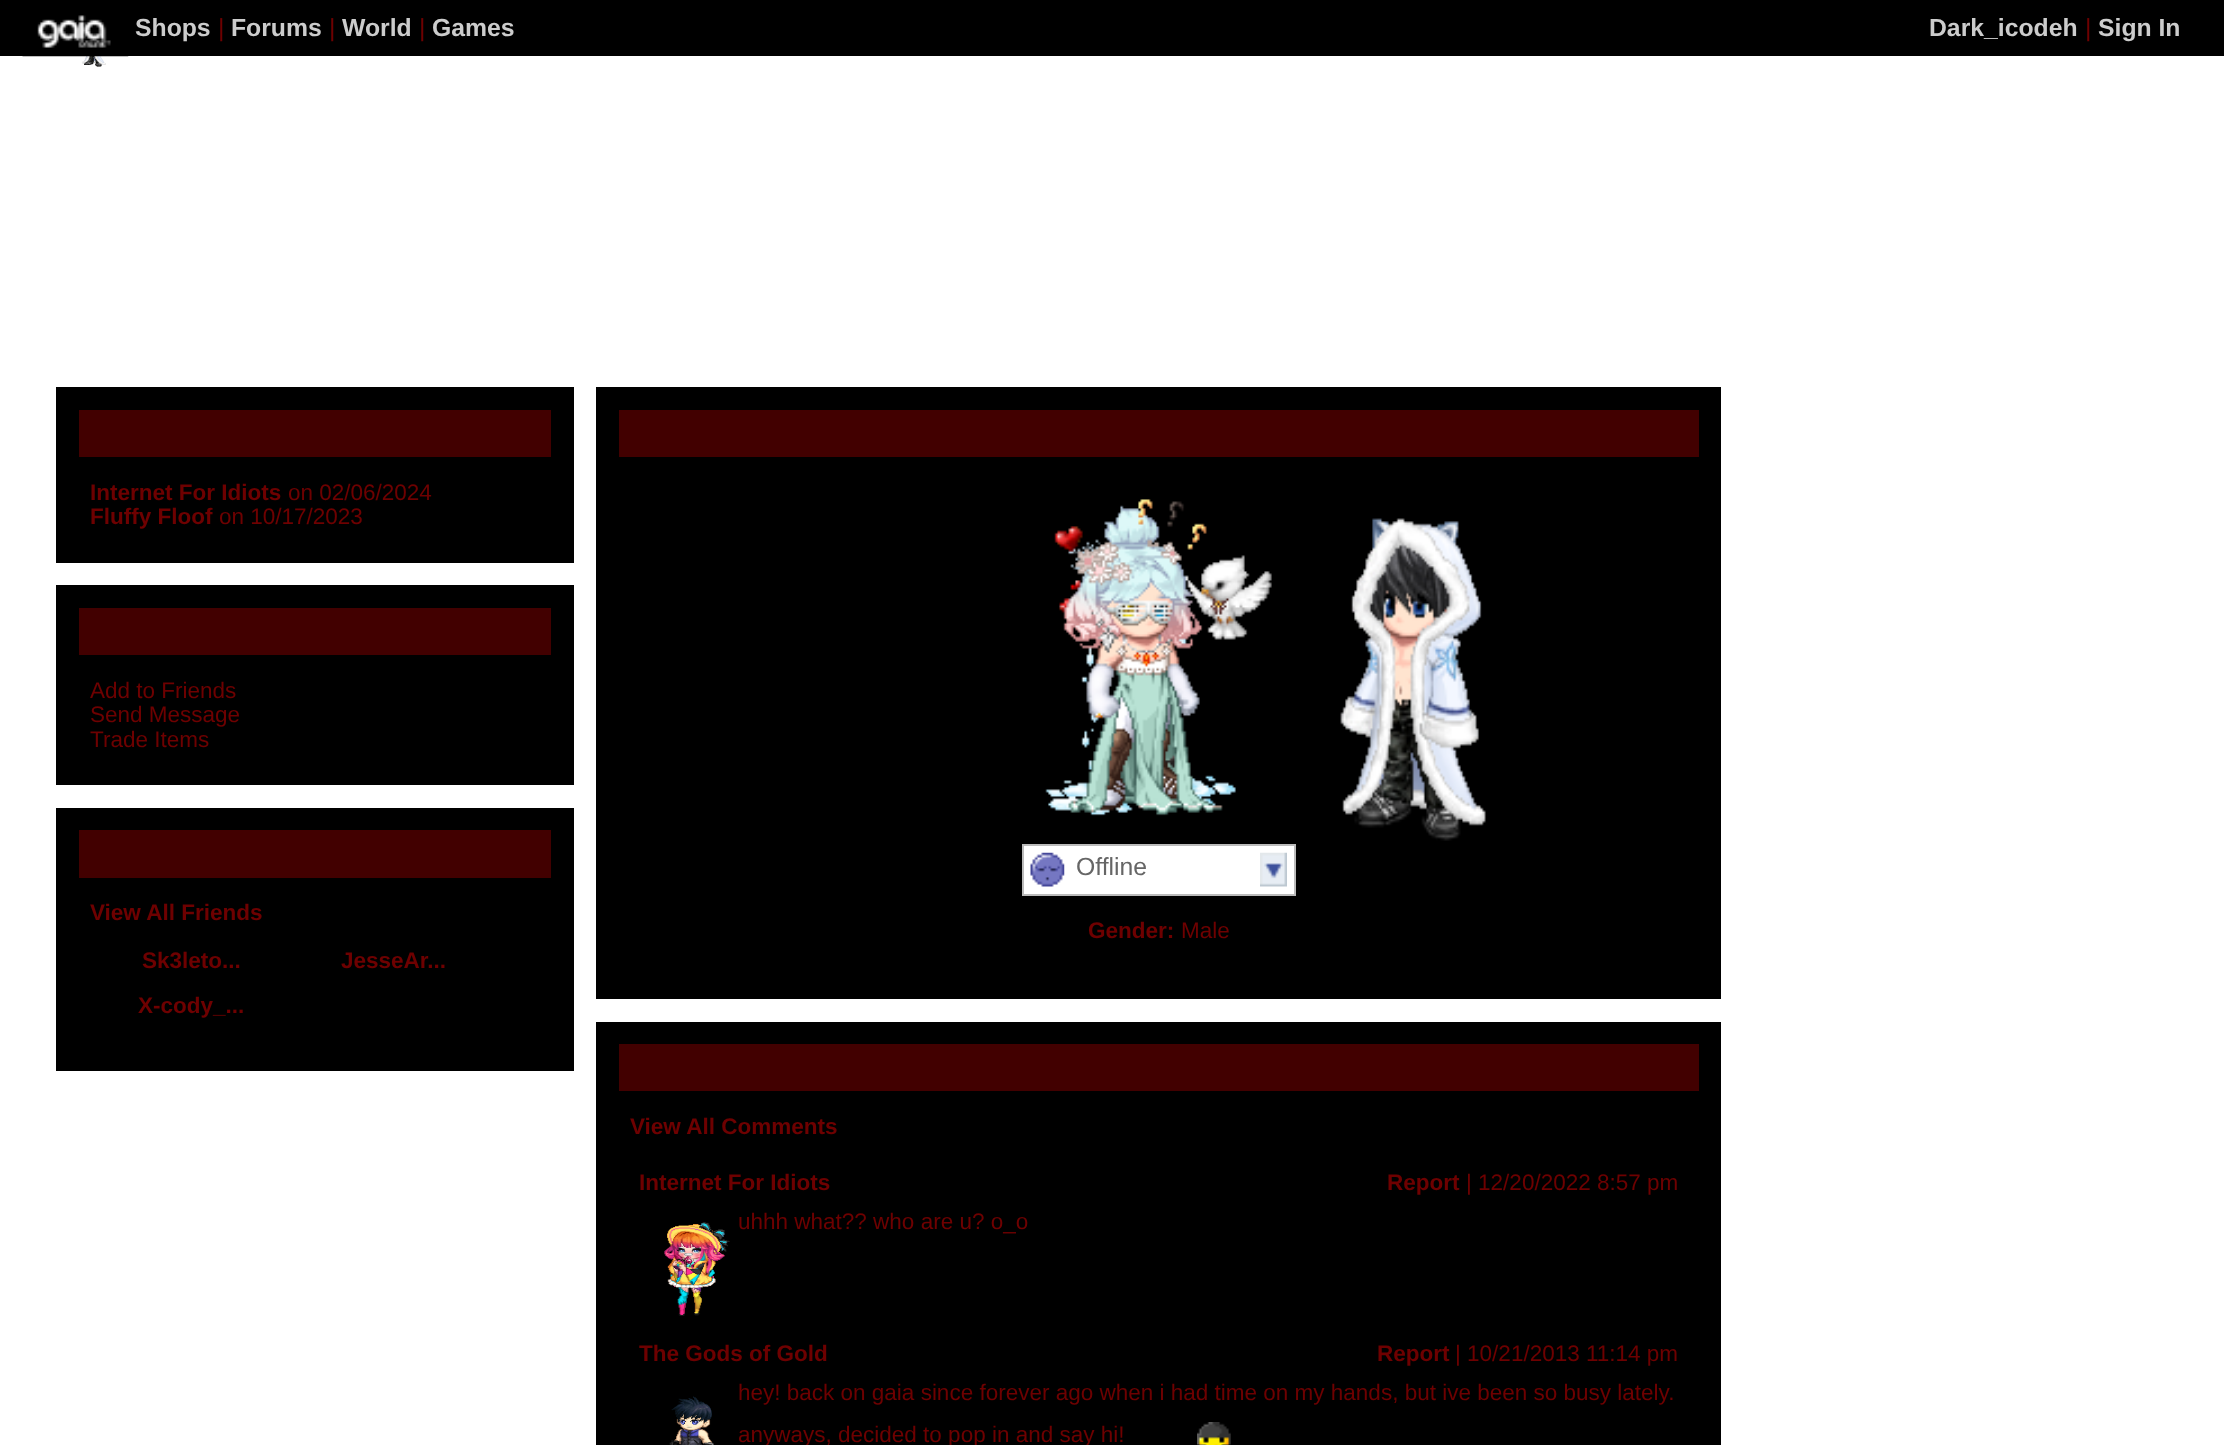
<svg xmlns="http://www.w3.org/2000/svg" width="2224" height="1445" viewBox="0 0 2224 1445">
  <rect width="100%" height="100%" fill="#ffffff"/>
  <rect x="0" y="0" width="2224" height="56" fill="#000000"/>
  <image x="81" y="56" width="25" height="11" href="img2.png"/>
  <image x="22" y="15" width="107" height="42" href="img1.png"/>
  <text x="135" y="36" font-family="Liberation Sans" font-size="24.75" font-weight="bold" fill="#cccccc">Shops</text>
  <text x="218" y="36" font-family="Liberation Sans" font-size="24.75" fill="#6e0000">|</text>
  <text x="231" y="36" font-family="Liberation Sans" font-size="24.75" font-weight="bold" fill="#cccccc">Forums</text>
  <text x="329" y="36" font-family="Liberation Sans" font-size="24.75" fill="#6e0000">|</text>
  <text x="342" y="36" font-family="Liberation Sans" font-size="24.75" font-weight="bold" fill="#cccccc">World</text>
  <text x="419" y="36" font-family="Liberation Sans" font-size="24.75" fill="#6e0000">|</text>
  <text x="432" y="36" font-family="Liberation Sans" font-size="24.75" font-weight="bold" fill="#cccccc">Games</text>
  <text x="1929" y="36" font-family="Liberation Sans" font-size="24.75" font-weight="bold" fill="#cccccc">Dark_icodeh</text>
  <text x="2085" y="36" font-family="Liberation Sans" font-size="24.75" fill="#6e0000">|</text>
  <text x="2098" y="36" font-family="Liberation Sans" font-size="24.75" font-weight="bold" fill="#cccccc">Sign In</text>
  <rect x="596" y="387" width="1125" height="612" fill="#000000"/>
  <image x="1340" y="518" width="146" height="323" href="img3.png"/>
  <rect x="56" y="387" width="518" height="176" fill="#000000"/>
  <rect x="79" y="410" width="472" height="47" fill="#420000"/>
  <text x="90" y="500" font-family="Liberation Sans" font-size="22.5" font-weight="bold" fill="#6e0000">Internet For Idiots</text>
  <text x="288" y="500" font-family="Liberation Sans" font-size="22.5" fill="#6e0000">on 02/06/2024</text>
  <text x="90" y="524" font-family="Liberation Sans" font-size="22.5" font-weight="bold" fill="#6e0000">Fluffy Floof</text>
  <text x="219" y="524" font-family="Liberation Sans" font-size="22.5" fill="#6e0000">on 10/17/2023</text>
  <rect x="56" y="585" width="518" height="200" fill="#000000"/>
  <rect x="79" y="608" width="472" height="47" fill="#420000"/>
  <text x="90" y="698" font-family="Liberation Sans" font-size="22.5" fill="#6e0000">Add to Friends</text>
  <text x="90" y="722" font-family="Liberation Sans" font-size="22.5" fill="#6e0000">Send Message</text>
  <text x="90" y="747" font-family="Liberation Sans" font-size="22.5" fill="#6e0000">Trade Items</text>
  <rect x="56" y="808" width="518" height="263" fill="#000000"/>
  <rect x="79" y="830" width="472" height="48" fill="#420000"/>
  <text x="90" y="920" font-family="Liberation Sans" font-size="22.5" font-weight="bold" fill="#6e0000">View All Friends</text>
  <text x="142" y="968" font-family="Liberation Sans" font-size="22.5" font-weight="bold" fill="#6e0000">Sk3leto...</text>
  <text x="341" y="968" font-family="Liberation Sans" font-size="22.5" font-weight="bold" fill="#6e0000">JesseAr...</text>
  <text x="138" y="1013" font-family="Liberation Sans" font-size="22.5" font-weight="bold" fill="#6e0000">X-cody_...</text>
  <rect x="619" y="410" width="1080" height="47" fill="#420000"/>
  <image x="1045" y="499" width="227" height="317" href="img4.png"/>
  <rect x="1023" y="845" width="272" height="50" fill="#ffffff" stroke="#bbbbbb" stroke-width="2"/>
  <image x="1260" y="852" width="27" height="35" href="img5.png"/>
  <image x="1030" y="852" width="35" height="35" href="img6.png"/>
  <text x="1076" y="875" font-family="Liberation Sans" font-size="24.75" fill="#666666">Offline</text>
  <text x="1088" y="938" font-family="Liberation Sans" font-size="22.5" font-weight="bold" fill="#6e0000">Gender:</text>
  <text x="1181" y="938" font-family="Liberation Sans" font-size="22.5" fill="#6e0000">Male</text>
  <rect x="596" y="1022" width="1125" height="423" fill="#000000"/>
  <rect x="619" y="1044" width="1080" height="47" fill="#420000"/>
  <text x="630" y="1134" font-family="Liberation Sans" font-size="22.5" font-weight="bold" fill="#6e0000">View All Comments</text>
  <text x="639" y="1190" font-family="Liberation Sans" font-size="22.5" font-weight="bold" fill="#6e0000">Internet For Idiots</text>
  <text x="1387" y="1190" font-family="Liberation Sans" font-size="22.5" font-weight="bold" fill="#6e0000">Report</text>
  <text x="1466" y="1190" font-family="Liberation Sans" font-size="22.5" fill="#6e0000">| 12/20/2022 8:57 pm</text>
  <image x="664" y="1222" width="66" height="94" href="img7.png"/>
  <text x="738" y="1229" font-family="Liberation Sans" font-size="22.5" fill="#6e0000">uhhh what?? who are u? o_o</text>
  <text x="639" y="1361" font-family="Liberation Sans" font-size="22.5" font-weight="bold" fill="#6e0000">The Gods of Gold</text>
  <text x="1377" y="1361" font-family="Liberation Sans" font-size="22.5" font-weight="bold" fill="#6e0000">Report</text>
  <text x="1455" y="1361" font-family="Liberation Sans" font-size="22.5" fill="#6e0000">| 10/21/2013 11:14 pm</text>
  <image x="669" y="1396" width="45" height="49" href="img8.png"/>
  <text x="738" y="1400" font-family="Liberation Sans" font-size="22.5" fill="#6e0000">hey! back on gaia since forever ago when i had time on my hands, but ive been so busy lately.</text>
  <text x="738" y="1442" font-family="Liberation Sans" font-size="22.5" fill="#6e0000">anyways, decided to pop in and say hi!</text>
  <image x="1197" y="1422" width="34" height="23" href="img9.png"/>
</svg>
